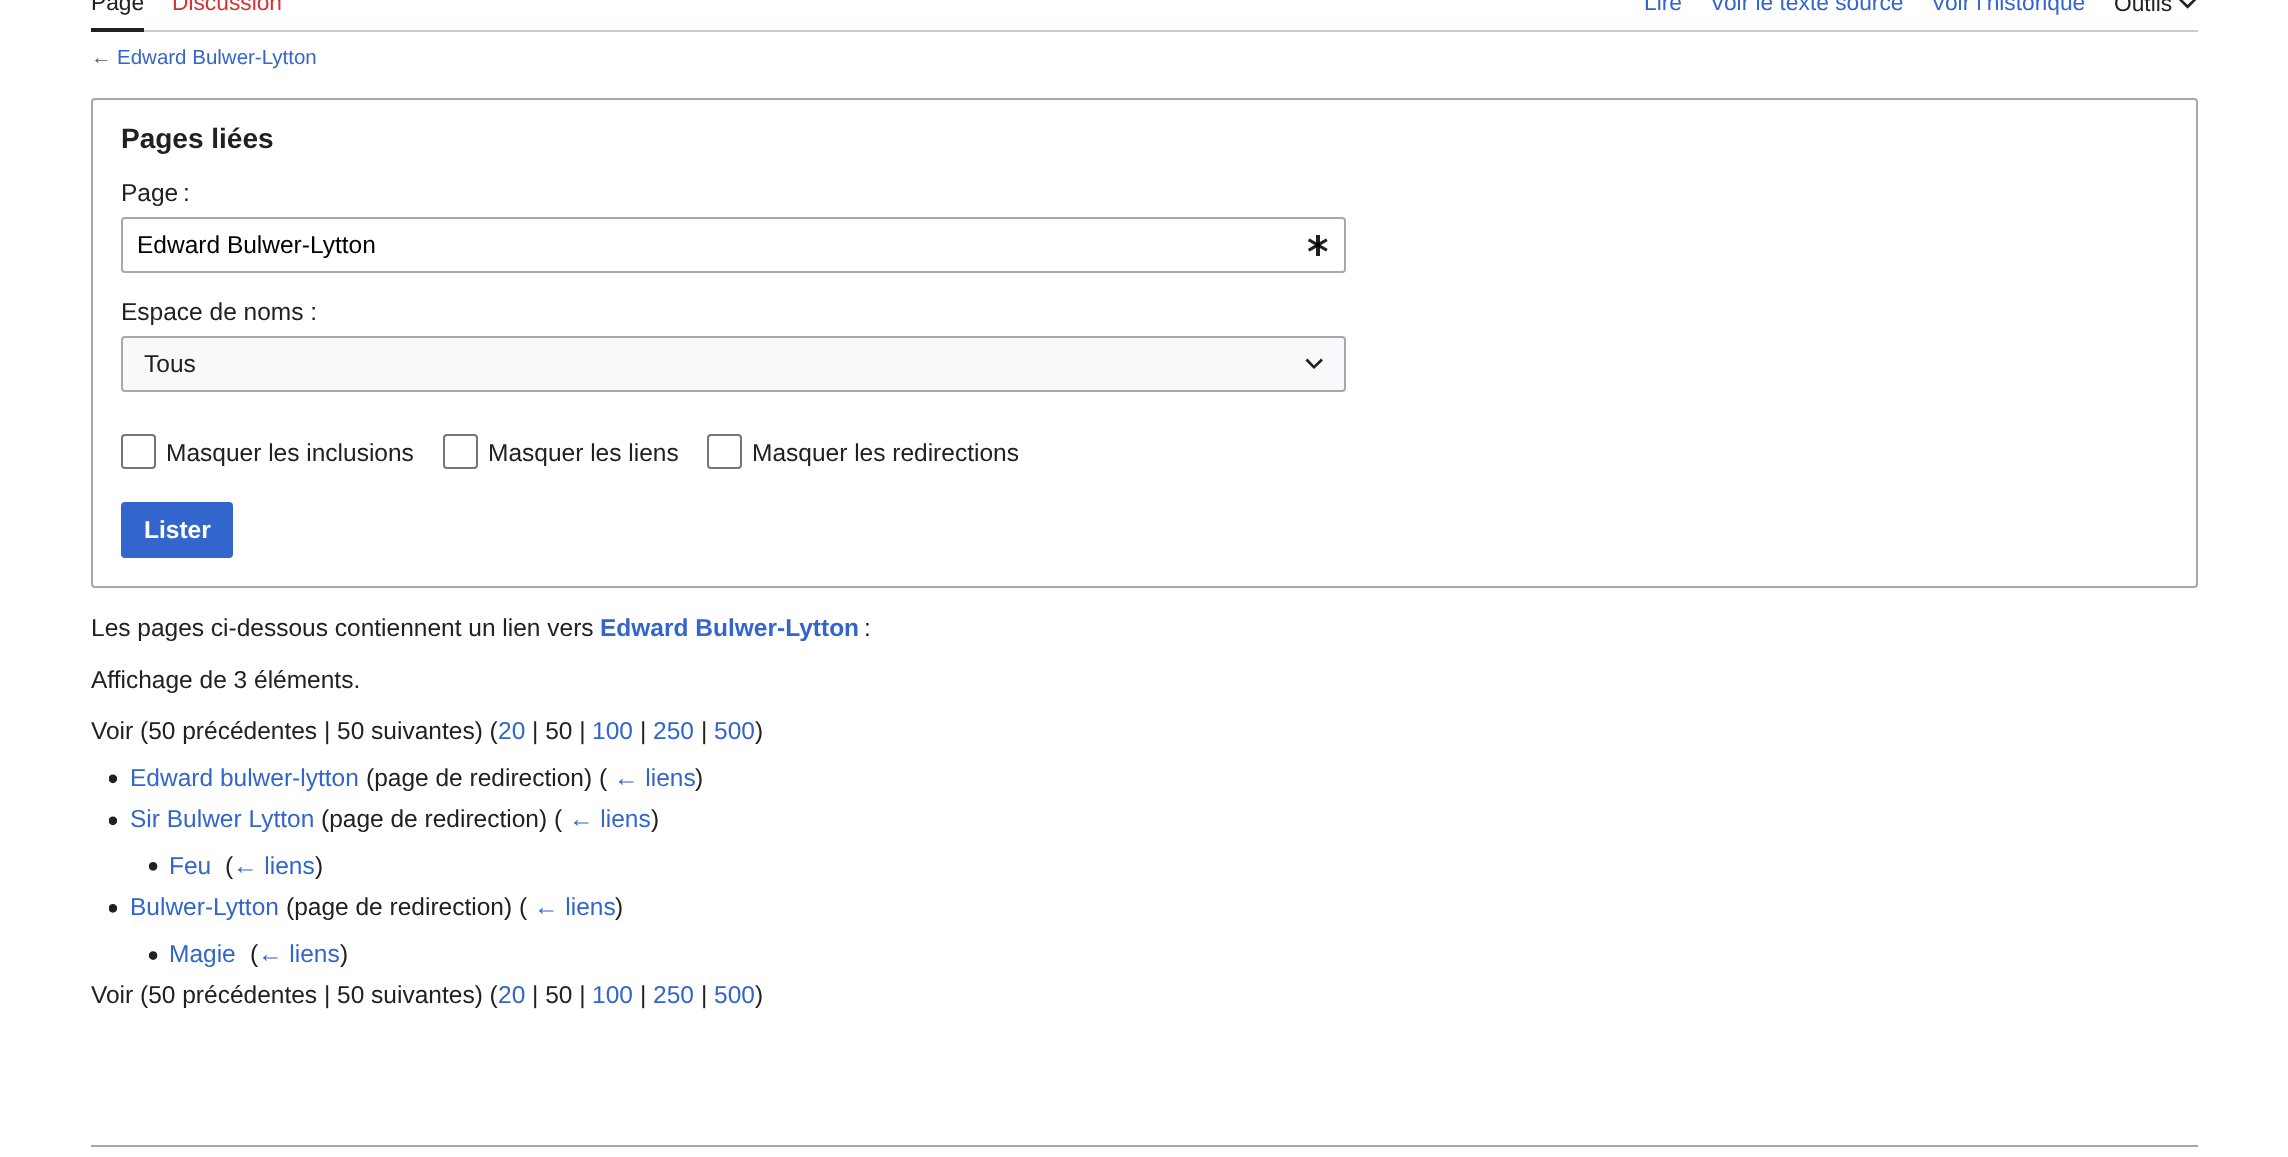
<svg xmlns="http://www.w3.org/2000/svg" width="2288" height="1157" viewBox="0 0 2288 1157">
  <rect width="100%" height="100%" fill="#ffffff"/>
  <rect x="144" y="30" width="2054" height="2" fill="#c8ccd1"/>
  <rect x="91" y="28" width="53" height="4" fill="#202122"/>
  <text x="91" y="10" font-family="Liberation Sans" font-size="22.75" fill="#202122">Page</text>
  <text x="172" y="10" font-family="Liberation Sans" font-size="22.75" fill="#d73333">Discussion</text>
  <text x="1644" y="10" font-family="Liberation Sans" font-size="22.75" fill="#3366cc">Lire</text>
  <text x="1710" y="10" font-family="Liberation Sans" font-size="22.75" fill="#3366cc">Voir le texte source</text>
  <text x="1931" y="10" font-family="Liberation Sans" font-size="22.75" fill="#3366cc">Voir l’historique</text>
  <text x="2114" y="11" font-family="Liberation Sans" font-size="22.75" fill="#202122">Outils</text>
  <image x="2179" y="0" width="18" height="9" href="img1.png"/>
  <text x="91" y="64" font-family="Liberation Sans" font-size="20.5" fill="#54595d">←</text>
  <text x="117" y="64" font-family="Liberation Sans" font-size="20.5" fill="#3366cc">Edward Bulwer-Lytton</text>
  <rect x="92" y="99" width="2105" height="488" rx="3" fill="none" stroke="#a2a9b1" stroke-width="2"/>
  <text x="121" y="148" font-family="Liberation Sans" font-size="28" font-weight="bold" fill="#202122">Pages liées</text>
  <text x="121" y="201" font-family="Liberation Sans" font-size="24.5" fill="#202122">Page :</text>
  <rect x="122" y="218" width="1223" height="54" rx="3" fill="none" stroke="#a2a9b1" stroke-width="2"/>
  <text x="137" y="253" font-family="Liberation Sans" font-size="24.5" fill="#000000">Edward Bulwer-Lytton</text>
  <image x="1308" y="235" width="20" height="21" href="img2.png"/>
  <text x="121" y="320" font-family="Liberation Sans" font-size="24.5" fill="#202122">Espace de noms :</text>
  <rect x="121" y="336" width="1225" height="56" fill="#f8f9fa"/>
  <rect x="122" y="337" width="1223" height="54" rx="3" fill="none" stroke="#a2a9b1" stroke-width="2"/>
  <text x="144" y="372" font-family="Liberation Sans" font-size="24.5" fill="#202122">Tous</text>
  <path d="M1321 358.5L1314 365.5L1307.5 358.5L1305.5 360.5L1314 369L1323 360.5Z" fill="#202021"/>
  <rect x="122" y="435" width="33" height="33" rx="3" fill="none" stroke="#72777d" stroke-width="2"/>
  <text x="166" y="461" font-family="Liberation Sans" font-size="24.5" fill="#202122">Masquer les inclusions</text>
  <rect x="444" y="435" width="33" height="33" rx="3" fill="none" stroke="#72777d" stroke-width="2"/>
  <text x="488" y="461" font-family="Liberation Sans" font-size="24.5" fill="#202122">Masquer les liens</text>
  <rect x="708" y="435" width="33" height="33" rx="3" fill="none" stroke="#72777d" stroke-width="2"/>
  <text x="752" y="461" font-family="Liberation Sans" font-size="24.5" fill="#202122">Masquer les redirections</text>
  <rect x="122" y="503" width="110" height="54" rx="3" fill="#3366cc" stroke="#3366cc" stroke-width="2"/>
  <text x="144" y="538" font-family="Liberation Sans" font-size="24.5" font-weight="bold" fill="#ffffff">Lister</text>
  <text x="91" y="636" font-family="Liberation Sans" font-size="24.5" fill="#202122">Les pages ci-dessous contiennent un lien vers</text>
  <text x="600" y="636" font-family="Liberation Sans" font-size="24.5" font-weight="bold" fill="#3366cc">Edward Bulwer-Lytton</text>
  <text x="864" y="636" font-family="Liberation Sans" font-size="24.5" fill="#202122">:</text>
  <text x="91" y="688" font-family="Liberation Sans" font-size="24.5" fill="#202122">Affichage de 3 éléments.</text>
  <text x="91" y="739" font-family="Liberation Sans" font-size="24.5" fill="#202122">Voir (50 précédentes | 50 suivantes) (</text>
  <text x="498" y="739" font-family="Liberation Sans" font-size="24.5" fill="#3366cc">20</text>
  <text x="532" y="739" font-family="Liberation Sans" font-size="24.5" fill="#202122">| 50 |</text>
  <text x="592" y="739" font-family="Liberation Sans" font-size="24.5" fill="#3366cc">100</text>
  <text x="640" y="739" font-family="Liberation Sans" font-size="24.5" fill="#202122">|</text>
  <text x="653" y="739" font-family="Liberation Sans" font-size="24.5" fill="#3366cc">250</text>
  <text x="701" y="739" font-family="Liberation Sans" font-size="24.5" fill="#202122">|</text>
  <text x="714" y="739" font-family="Liberation Sans" font-size="24.5" fill="#3366cc">500</text>
  <text x="755" y="739" font-family="Liberation Sans" font-size="24.5" fill="#202122">)</text>
  <image x="109" y="774" width="8" height="10" href="img3.png"/>
  <text x="130" y="786" font-family="Liberation Sans" font-size="24.5" fill="#3366cc">Edward bulwer-lytton</text>
  <text x="366" y="786" font-family="Liberation Sans" font-size="24.5" fill="#202122">(page de redirection)  (</text>
  <text x="614" y="786" font-family="Liberation Sans" font-size="24.5" fill="#3366cc">← liens</text>
  <text x="695" y="786" font-family="Liberation Sans" font-size="24.5" fill="#202122">)</text>
  <image x="109" y="816" width="8" height="10" href="img3.png"/>
  <text x="130" y="827" font-family="Liberation Sans" font-size="24.5" fill="#3366cc">Sir Bulwer Lytton</text>
  <text x="321" y="827" font-family="Liberation Sans" font-size="24.5" fill="#202122">(page de redirection)  (</text>
  <text x="569" y="827" font-family="Liberation Sans" font-size="24.5" fill="#3366cc">← liens</text>
  <text x="651" y="827" font-family="Liberation Sans" font-size="24.5" fill="#202122">)</text>
  <image x="149" y="862" width="9" height="9" href="img4.png"/>
  <text x="169" y="874" font-family="Liberation Sans" font-size="24.5" fill="#3366cc">Feu</text>
  <text x="225" y="874" font-family="Liberation Sans" font-size="24.5" fill="#202122">(</text>
  <text x="233" y="874" font-family="Liberation Sans" font-size="24.5" fill="#3366cc">← liens</text>
  <text x="315" y="874" font-family="Liberation Sans" font-size="24.5" fill="#202122">)</text>
  <image x="109" y="904" width="8" height="9" href="img5.png"/>
  <text x="130" y="915" font-family="Liberation Sans" font-size="24.5" fill="#3366cc">Bulwer-Lytton</text>
  <text x="286" y="915" font-family="Liberation Sans" font-size="24.5" fill="#202122">(page de redirection)  (</text>
  <text x="534" y="915" font-family="Liberation Sans" font-size="24.5" fill="#3366cc">← liens</text>
  <text x="615" y="915" font-family="Liberation Sans" font-size="24.5" fill="#202122">)</text>
  <image x="149" y="951" width="9" height="9" href="img6.png"/>
  <text x="169" y="962" font-family="Liberation Sans" font-size="24.5" fill="#3366cc">Magie</text>
  <text x="250" y="962" font-family="Liberation Sans" font-size="24.5" fill="#202122">(</text>
  <text x="258" y="962" font-family="Liberation Sans" font-size="24.5" fill="#3366cc">← liens</text>
  <text x="340" y="962" font-family="Liberation Sans" font-size="24.5" fill="#202122">)</text>
  <text x="91" y="1003" font-family="Liberation Sans" font-size="24.5" fill="#202122">Voir (50 précédentes | 50 suivantes) (</text>
  <text x="498" y="1003" font-family="Liberation Sans" font-size="24.5" fill="#3366cc">20</text>
  <text x="532" y="1003" font-family="Liberation Sans" font-size="24.5" fill="#202122">| 50 |</text>
  <text x="592" y="1003" font-family="Liberation Sans" font-size="24.5" fill="#3366cc">100</text>
  <text x="640" y="1003" font-family="Liberation Sans" font-size="24.5" fill="#202122">|</text>
  <text x="653" y="1003" font-family="Liberation Sans" font-size="24.5" fill="#3366cc">250</text>
  <text x="701" y="1003" font-family="Liberation Sans" font-size="24.5" fill="#202122">|</text>
  <text x="714" y="1003" font-family="Liberation Sans" font-size="24.5" fill="#3366cc">500</text>
  <text x="755" y="1003" font-family="Liberation Sans" font-size="24.5" fill="#202122">)</text>
  <rect x="91" y="1145" width="2107" height="2" fill="#a2a9b1"/>
</svg>
